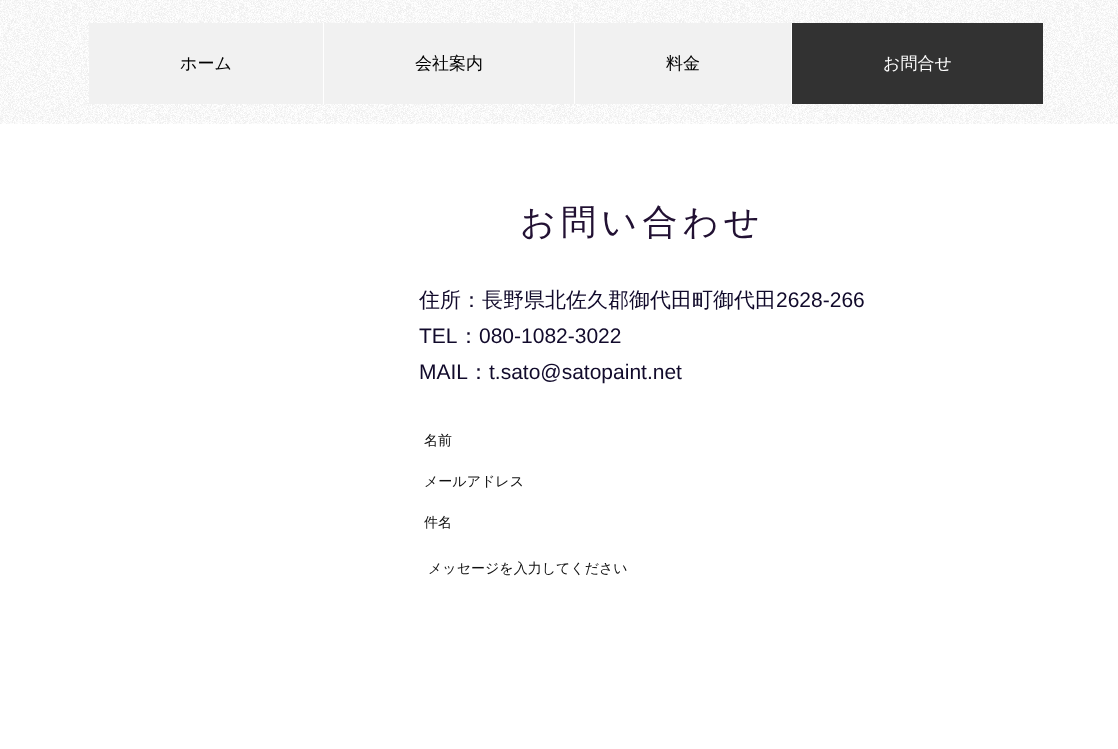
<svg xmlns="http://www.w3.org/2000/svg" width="1118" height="749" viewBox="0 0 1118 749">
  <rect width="100%" height="100%" fill="#ffffff"/>
  <image x="0" y="0" width="1118" height="124" href="img1.png"/>
  <rect x="89" y="23" width="702" height="81" fill="#f1f1f1"/>
  <text x="180" y="69" font-family="WenQuanYi Zen Hei" font-size="17" font-weight="500" fill="#000000">ホーム</text>
  <rect x="323" y="23" width="1" height="81" fill="#ffffff"/>
  <text x="415" y="69" font-family="WenQuanYi Zen Hei" font-size="17" font-weight="500" fill="#000000">会社案内</text>
  <rect x="574" y="23" width="1" height="81" fill="#ffffff"/>
  <text x="666" y="69" font-family="WenQuanYi Zen Hei" font-size="17" font-weight="500" fill="#000000">料金</text>
  <rect x="792" y="23" width="251" height="81" fill="#323232"/>
  <rect x="791" y="23" width="1" height="81" fill="#ffffff"/>
  <text x="883" y="69" font-family="WenQuanYi Zen Hei" font-size="17" font-weight="500" fill="#ffffff">お問合せ</text>
  <text x="520" y="234" font-family="WenQuanYi Zen Hei" font-size="35" font-weight="500" letter-spacing="5.25" fill="#221133">お問い合わせ</text>
  <text x="419" y="307" font-family="WenQuanYi Zen Hei" font-size="21" font-weight="500" fill="#110a2b">住所：長野県北佐久郡御代田町御代田</text>
  <text x="776" y="307" font-family="Liberation Sans" font-size="21" fill="#110a2b">2628-266</text>
  <text x="419" y="343" font-family="Liberation Sans" font-size="21" fill="#110a2b">TEL</text>
  <text x="458" y="343" font-family="WenQuanYi Zen Hei" font-size="21" font-weight="500" fill="#110a2b">：</text>
  <text x="479" y="343" font-family="Liberation Sans" font-size="21" fill="#110a2b">080-1082-3022</text>
  <text x="419" y="379" font-family="Liberation Sans" font-size="21" fill="#110a2b">MAIL</text>
  <text x="468" y="379" font-family="WenQuanYi Zen Hei" font-size="21" font-weight="500" fill="#110a2b">：</text>
  <text x="489" y="379" font-family="Liberation Sans" font-size="21" fill="#110a2b">t.sato@satopaint.net</text>
  <text x="424" y="445" font-family="WenQuanYi Zen Hei" font-size="14" font-weight="500" fill="#0f0f0f">名前</text>
  <text x="424" y="486" font-family="WenQuanYi Zen Hei" font-size="14" font-weight="500" fill="#0f0f0f">メールアドレス</text>
  <text x="424" y="527" font-family="WenQuanYi Zen Hei" font-size="14" font-weight="500" fill="#0f0f0f">件名</text>
  <text x="428" y="573" font-family="WenQuanYi Zen Hei" font-size="14" font-weight="500" fill="#0f0f0f">メッセージを入力してください</text>
</svg>
